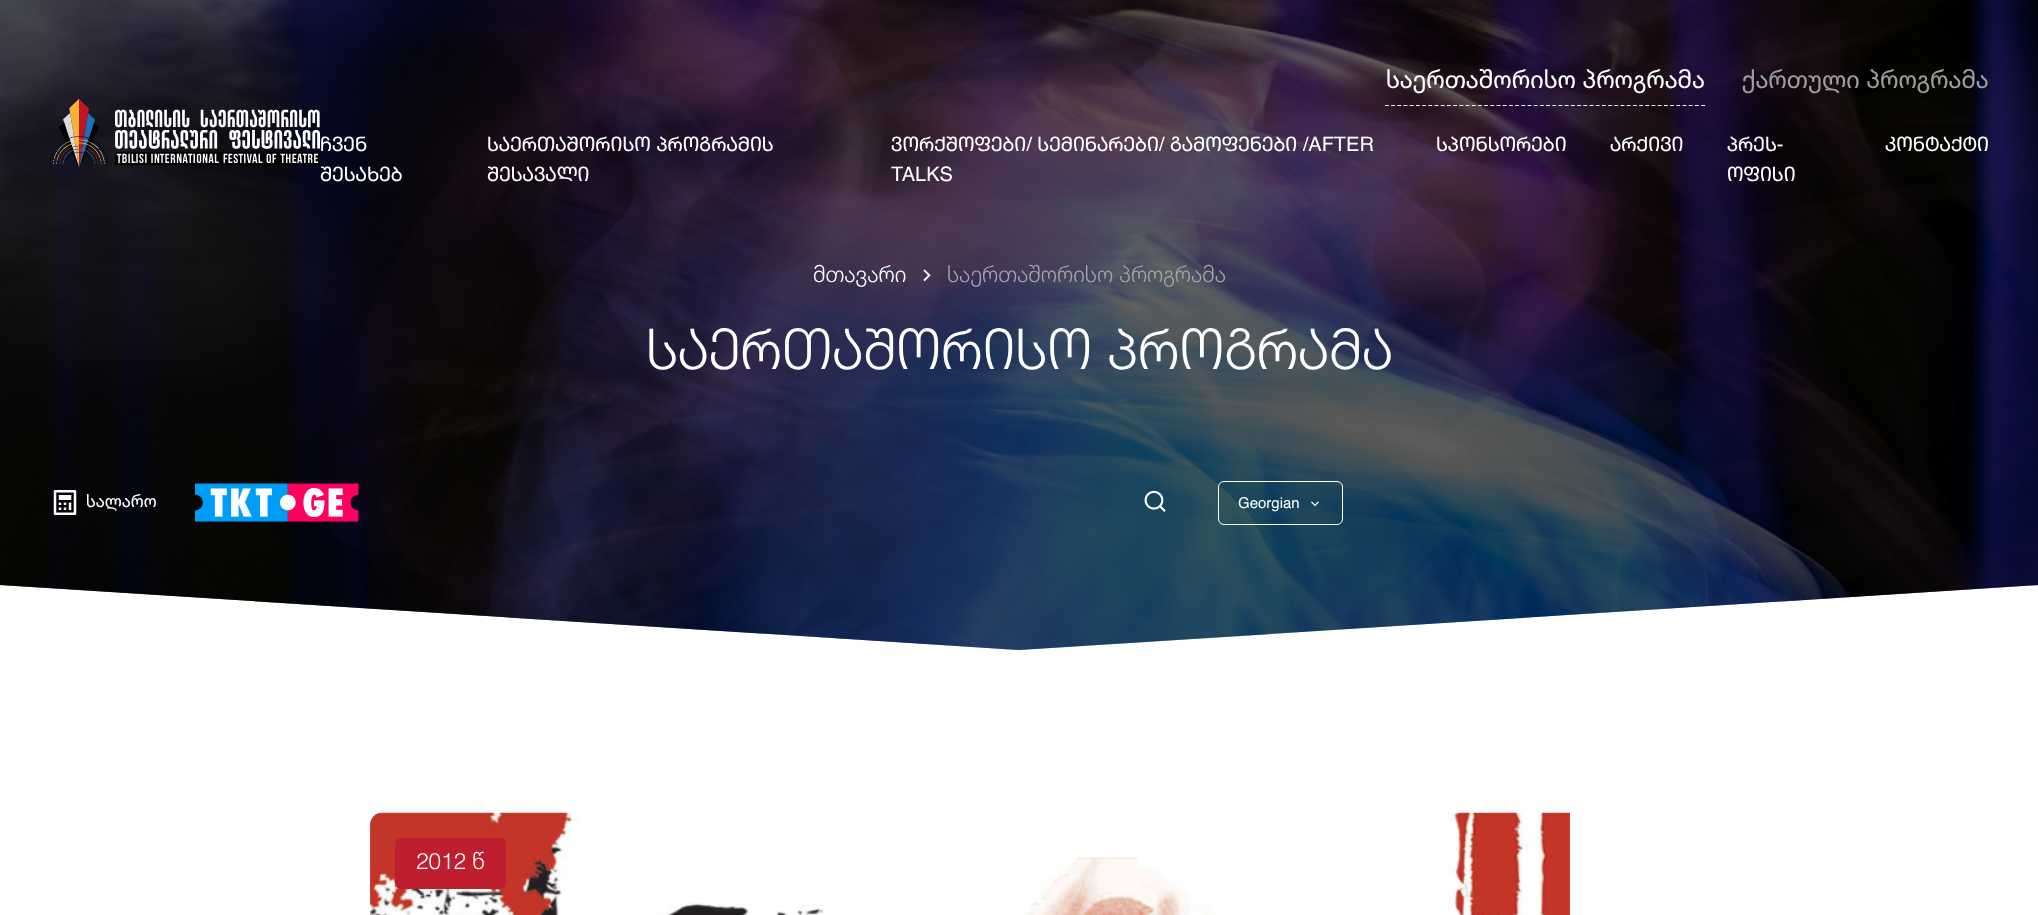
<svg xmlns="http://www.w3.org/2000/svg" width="2038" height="915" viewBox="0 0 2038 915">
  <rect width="100%" height="100%" fill="#ffffff"/>
  <image x="0" y="0" width="2038" height="650" href="img2.png"/>
  <path d="M0 0V585L1019 650L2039 585V0Z" fill="#000000" fill-opacity="0.6"/>
  <image x="50" y="98" width="270" height="70" href="img1.png"/>
  <text x="1386" y="88" font-family="Helvetica" font-size="25" fill="#ffffff">საერთაშორისო პროგრამა</text>
  <path d="M1385 105.5H1705" fill="none" stroke="#ffffff" stroke-width="1.2" stroke-dasharray="3.75 2.45"/>
  <text x="1742" y="88" font-family="Helvetica" font-size="25" fill="#9e9c9e">ქართული პროგრამა</text>
  <text x="320" y="151" font-family="'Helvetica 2'" font-size="20" fill="#ffffff">ჩვენ</text>
  <text x="320" y="181" font-family="'Helvetica 2'" font-size="20" fill="#ffffff">შესახებ</text>
  <text x="487" y="151" font-family="'Helvetica 2'" font-size="20" fill="#ffffff">საერთაშორისო პროგრამის</text>
  <text x="487" y="181" font-family="'Helvetica 2'" font-size="20" fill="#ffffff">შესავალი</text>
  <text x="891" y="151" font-family="'Helvetica 2'" font-size="20" fill="#ffffff">ვორქშოფები/ სემინარები/ გამოფენები /AFTER</text>
  <text x="891" y="181" font-family="'Helvetica 2'" font-size="20" fill="#ffffff">TALKS</text>
  <text x="1436" y="151" font-family="'Helvetica 2'" font-size="20" fill="#ffffff">სპონსორები</text>
  <text x="1610" y="151" font-family="'Helvetica 2'" font-size="20" fill="#ffffff">არქივი</text>
  <text x="1727" y="151" font-family="'Helvetica 2'" font-size="20" fill="#ffffff">პრეს-</text>
  <text x="1727" y="181" font-family="'Helvetica 2'" font-size="20" fill="#ffffff">ოფისი</text>
  <text x="1885" y="151" font-family="'Helvetica 2'" font-size="20" fill="#ffffff">კონტაქტი</text>
  <text x="813" y="282" font-family="Helvetica" font-size="22.5" font-weight="300" fill="#ffffff">მთავარი</text>
  <image x="923" y="269" width="8" height="13" href="img3.png"/>
  <text x="947" y="282" font-family="Helvetica" font-size="22.5" font-weight="300" fill="#a3a2ad">საერთაშორისო პროგრამა</text>
  <text x="646" y="369" font-family="'Helvetica 2'" font-size="56.25" font-weight="300" fill="#ffffff">საერთაშორისო პროგრამა</text>
  <image x="53" y="490" width="24" height="25" href="img4.png"/>
  <text x="86" y="507" font-family="Helvetica" font-size="17.5" fill="#ffffff">სალარო</text>
  <image x="195" y="483" width="164" height="39" href="img5.png"/>
  <image x="1144" y="490" width="22" height="22" href="img6.png"/>
  <rect x="1218.5" y="481.5" width="124" height="43" rx="5.5" fill="none" stroke="#ffffff"/>
  <text x="1238" y="508" font-family="Helvetica" font-size="15" fill="#ffffff">Georgian</text>
  <image x="1311" y="501" width="8" height="6" href="img7.png"/>
  <image x="370" y="812" width="1200" height="103" href="img8.png"/>
  <rect x="395" y="838" width="111" height="51" rx="6" fill="#bf1e2e"/>
  <text x="416" y="869" font-family="Helvetica" font-size="22.5" font-weight="300" fill="#ffffff">2012 წ</text>
</svg>
